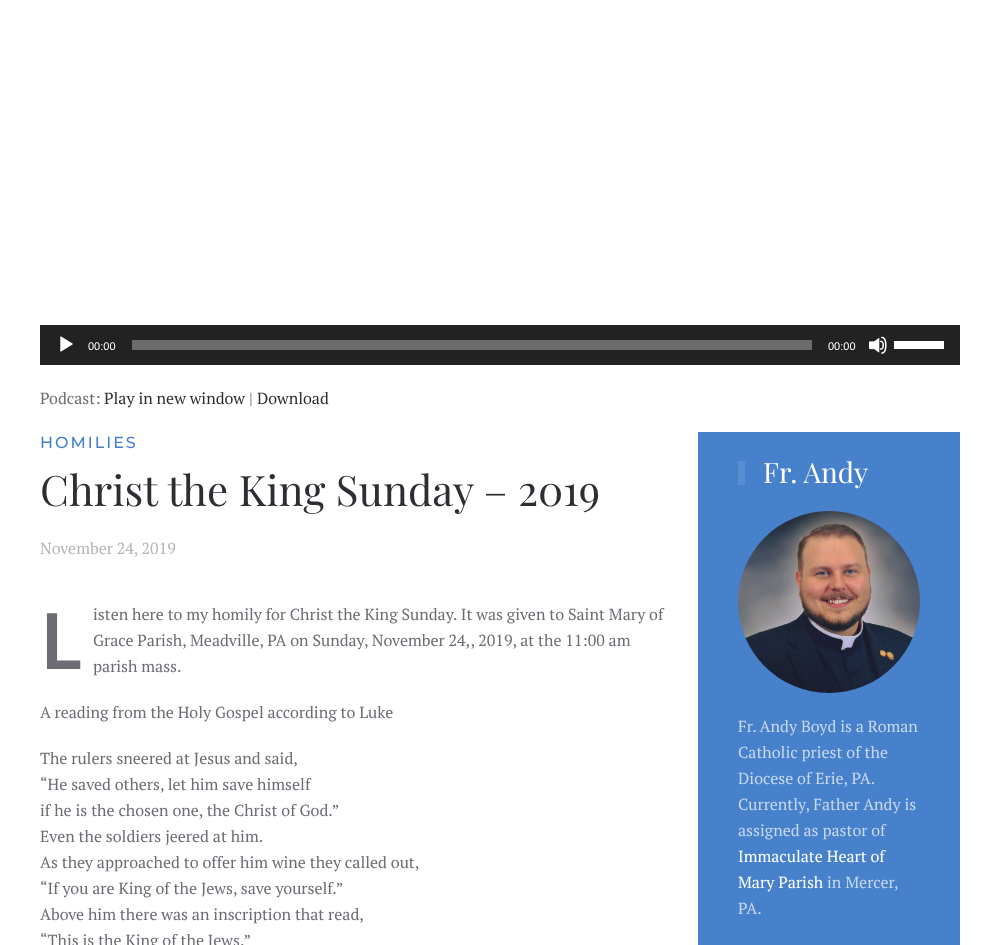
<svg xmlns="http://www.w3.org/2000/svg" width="1000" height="945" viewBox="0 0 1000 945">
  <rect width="100%" height="100%" fill="#ffffff"/>
  <rect x="40" y="325" width="920" height="40" fill="#222222"/>
  <image x="60" y="336" width="13" height="16" href="img1.png"/>
  <text x="88" y="350" font-family="Liberation Sans" font-size="11" fill="#ffffff">00:00</text>
  <rect x="132" y="340" width="680" height="10" fill="#6b6b6b"/>
  <text x="828" y="350" font-family="Liberation Sans" font-size="11" fill="#ffffff">00:00</text>
  <image x="869" y="336" width="18" height="18" href="img2.png"/>
  <rect x="894" y="341" width="50" height="8" fill="#ffffff"/>
  <text x="40" y="404" font-family="PT Serif" font-size="16" fill="#6c6d74">Podcast:</text>
  <text x="104" y="404" font-family="PT Serif" font-size="16" fill="#2d2e33">Play in new window</text>
  <text x="249" y="404" font-family="PT Serif" font-size="16" fill="#6c6d74">|</text>
  <text x="257" y="404" font-family="PT Serif" font-size="16" fill="#2d2e33">Download</text>
  <text x="40" y="448" font-family="Montserrat" font-size="16" font-weight="100" letter-spacing="2" fill="#4781cb">HOMILIES</text>
  <text x="40" y="506" font-family="Playfair Display" font-size="42" fill="#2d2e33">Christ the King Sunday – 2019</text>
  <text x="40" y="554" font-family="PT Serif" font-size="16" fill="#b4b5ba">November 24, 2019</text>
  <text x="40" y="669" font-family="Noto Sans" font-size="78" font-weight="600" fill="#6c6d74">L</text>
  <text x="93" y="620" font-family="PT Serif" font-size="16" fill="#6c6d74">isten here to my homily for Christ the King Sunday. It was given to Saint Mary of</text>
  <text x="93" y="646" font-family="PT Serif" font-size="16" fill="#6c6d74">Grace Parish, Meadville, PA on Sunday, November 24,, 2019, at the 11:00 am</text>
  <text x="93" y="672" font-family="PT Serif" font-size="16" fill="#6c6d74">parish mass.</text>
  <text x="40" y="718" font-family="PT Serif" font-size="16" fill="#6c6d74">A reading from the Holy Gospel according to Luke</text>
  <text x="40" y="764" font-family="PT Serif" font-size="16" fill="#6c6d74">The rulers sneered at Jesus and said,</text>
  <text x="40" y="790" font-family="PT Serif" font-size="16" fill="#6c6d74">“He saved others, let him save himself</text>
  <text x="40" y="816" font-family="PT Serif" font-size="16" fill="#6c6d74">if he is the chosen one, the Christ of God.”</text>
  <text x="40" y="842" font-family="PT Serif" font-size="16" fill="#6c6d74">Even the soldiers jeered at him.</text>
  <text x="40" y="868" font-family="PT Serif" font-size="16" fill="#6c6d74">As they approached to offer him wine they called out,</text>
  <text x="40" y="894" font-family="PT Serif" font-size="16" fill="#6c6d74">“If you are King of the Jews, save yourself.”</text>
  <text x="40" y="920" font-family="PT Serif" font-size="16" fill="#6c6d74">Above him there was an inscription that read,</text>
  <text x="40" y="946" font-family="PT Serif" font-size="16" fill="#6c6d74">“This is the King of the Jews.”</text>
  <rect x="698" y="432" width="262" height="513" fill="#4781cb"/>
  <rect x="738" y="461" width="7" height="24" fill="#598ed0"/>
  <text x="763" y="483" font-family="Playfair Display" font-size="28" fill="#ffffff">Fr. Andy</text>
  <image x="738" y="511" width="182" height="182" href="img3.png"/>
  <text x="738" y="732" font-family="PT Serif" font-size="16" fill="#c8d9ef">Fr. Andy Boyd is a Roman</text>
  <text x="738" y="758" font-family="PT Serif" font-size="16" fill="#c8d9ef">Catholic priest of the</text>
  <text x="738" y="784" font-family="PT Serif" font-size="16" fill="#c8d9ef">Diocese of Erie, PA.</text>
  <text x="738" y="810" font-family="PT Serif" font-size="16" fill="#c8d9ef">Currently, Father Andy is</text>
  <text x="738" y="836" font-family="PT Serif" font-size="16" fill="#c8d9ef">assigned as pastor of</text>
  <text x="738" y="862" font-family="PT Serif" font-size="16" fill="#ffffff">Immaculate Heart of</text>
  <text x="738" y="888" font-family="PT Serif" font-size="16" fill="#ffffff">Mary Parish</text>
  <text x="827" y="888" font-family="PT Serif" font-size="16" fill="#c8d9ef">in Mercer,</text>
  <text x="738" y="914" font-family="PT Serif" font-size="16" fill="#c8d9ef">PA.</text>
</svg>
